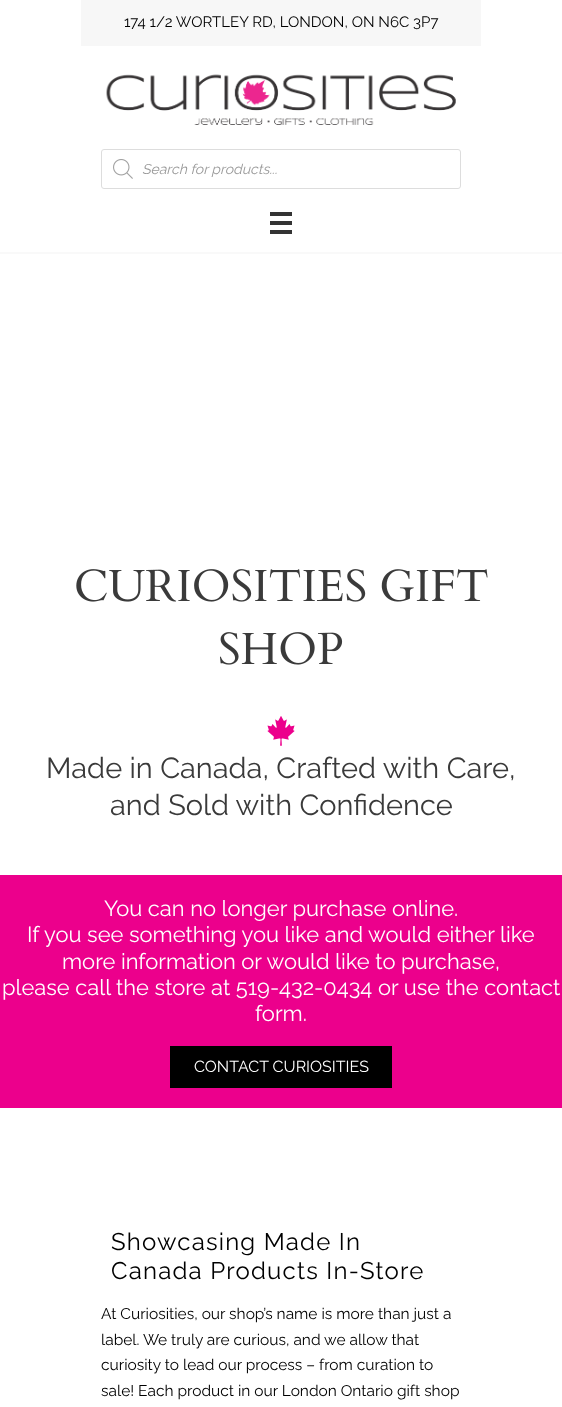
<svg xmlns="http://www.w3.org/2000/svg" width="562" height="1407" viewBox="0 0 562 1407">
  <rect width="100%" height="100%" fill="#ffffff"/>
  <rect x="81" y="0" width="400" height="46" fill="#f7f7f7"/>
  <text x="124" y="27" font-family="Raleway" font-size="15" font-weight="100" fill="#000000">174 1/2 WORTLEY RD, LONDON, ON N6C 3P7</text>
  <image x="106" y="74" width="350" height="51" href="img1.png"/>
  <rect x="101.5" y="149.5" width="359" height="39" rx="2.5" fill="none" stroke="#dddddd"/>
  <image x="113" y="159" width="20" height="20" href="img2.png"/>
  <text x="142" y="174" font-family="Raleway" font-size="14" font-weight="100" font-style="italic" fill="#999999">Search for products...</text>
  <rect x="270" y="212" width="22" height="4" fill="#333333"/>
  <rect x="270" y="221" width="22" height="4" fill="#333333"/>
  <rect x="270" y="230" width="22" height="4" fill="#333333"/>
  <rect x="0" y="252" width="562" height="2" fill="#f9f9f9"/>
  <image x="76" y="569" width="412" height="33" href="img3.png"/>
  <image x="220" y="632" width="123" height="33" href="img4.png"/>
  <image x="267" y="716" width="28" height="30" href="img5.png"/>
  <text x="46" y="778" font-family="Raleway" font-size="29" font-weight="100" fill="#3a3a3a">Made in Canada, Crafted with Care,</text>
  <text x="110" y="815" font-family="Raleway" font-size="29" font-weight="100" fill="#3a3a3a">and Sold with Confidence</text>
  <rect x="0" y="875" width="562" height="233" fill="#ec008c"/>
  <text x="104" y="916" font-family="Raleway" font-size="21.9" font-weight="100" fill="#ffffff">You can no longer purchase online.</text>
  <text x="27" y="942" font-family="Raleway" font-size="21.9" font-weight="100" fill="#ffffff">If you see something you like and would either like</text>
  <text x="62" y="969" font-family="Raleway" font-size="21.9" font-weight="100" fill="#ffffff">more information or would like to purchase,</text>
  <text x="2" y="995" font-family="Raleway" font-size="21.9" font-weight="100" fill="#ffffff">please call the store at 519-432-0434 or use the contact</text>
  <text x="255" y="1021" font-family="Raleway" font-size="21.9" font-weight="100" fill="#ffffff">form.</text>
  <rect x="170" y="1046" width="222" height="42" fill="#000000"/>
  <text x="194" y="1072" font-family="Raleway" font-size="16" font-weight="100" fill="#ffffff">CONTACT CURIOSITIES</text>
  <text x="111" y="1250" font-family="Raleway" font-size="24" font-weight="100" letter-spacing="1.2" fill="#000000">Showcasing Made In</text>
  <text x="111" y="1279" font-family="Raleway" font-size="24" font-weight="100" letter-spacing="1.2" fill="#000000">Canada Products In-Store</text>
  <text x="101" y="1319" font-family="Raleway" font-size="15.5" font-weight="100" fill="#000000">At Curiosities, our shop’s name is more than just a</text>
  <text x="101" y="1345" font-family="Raleway" font-size="15.5" font-weight="100" fill="#000000">label. We truly are curious, and we allow that</text>
  <text x="101" y="1370" font-family="Raleway" font-size="15.5" font-weight="100" fill="#000000">curiosity to lead our process – from curation to</text>
  <text x="101" y="1396" font-family="Raleway" font-size="15.5" font-weight="100" fill="#000000">sale! Each product in our London Ontario gift shop</text>
</svg>
